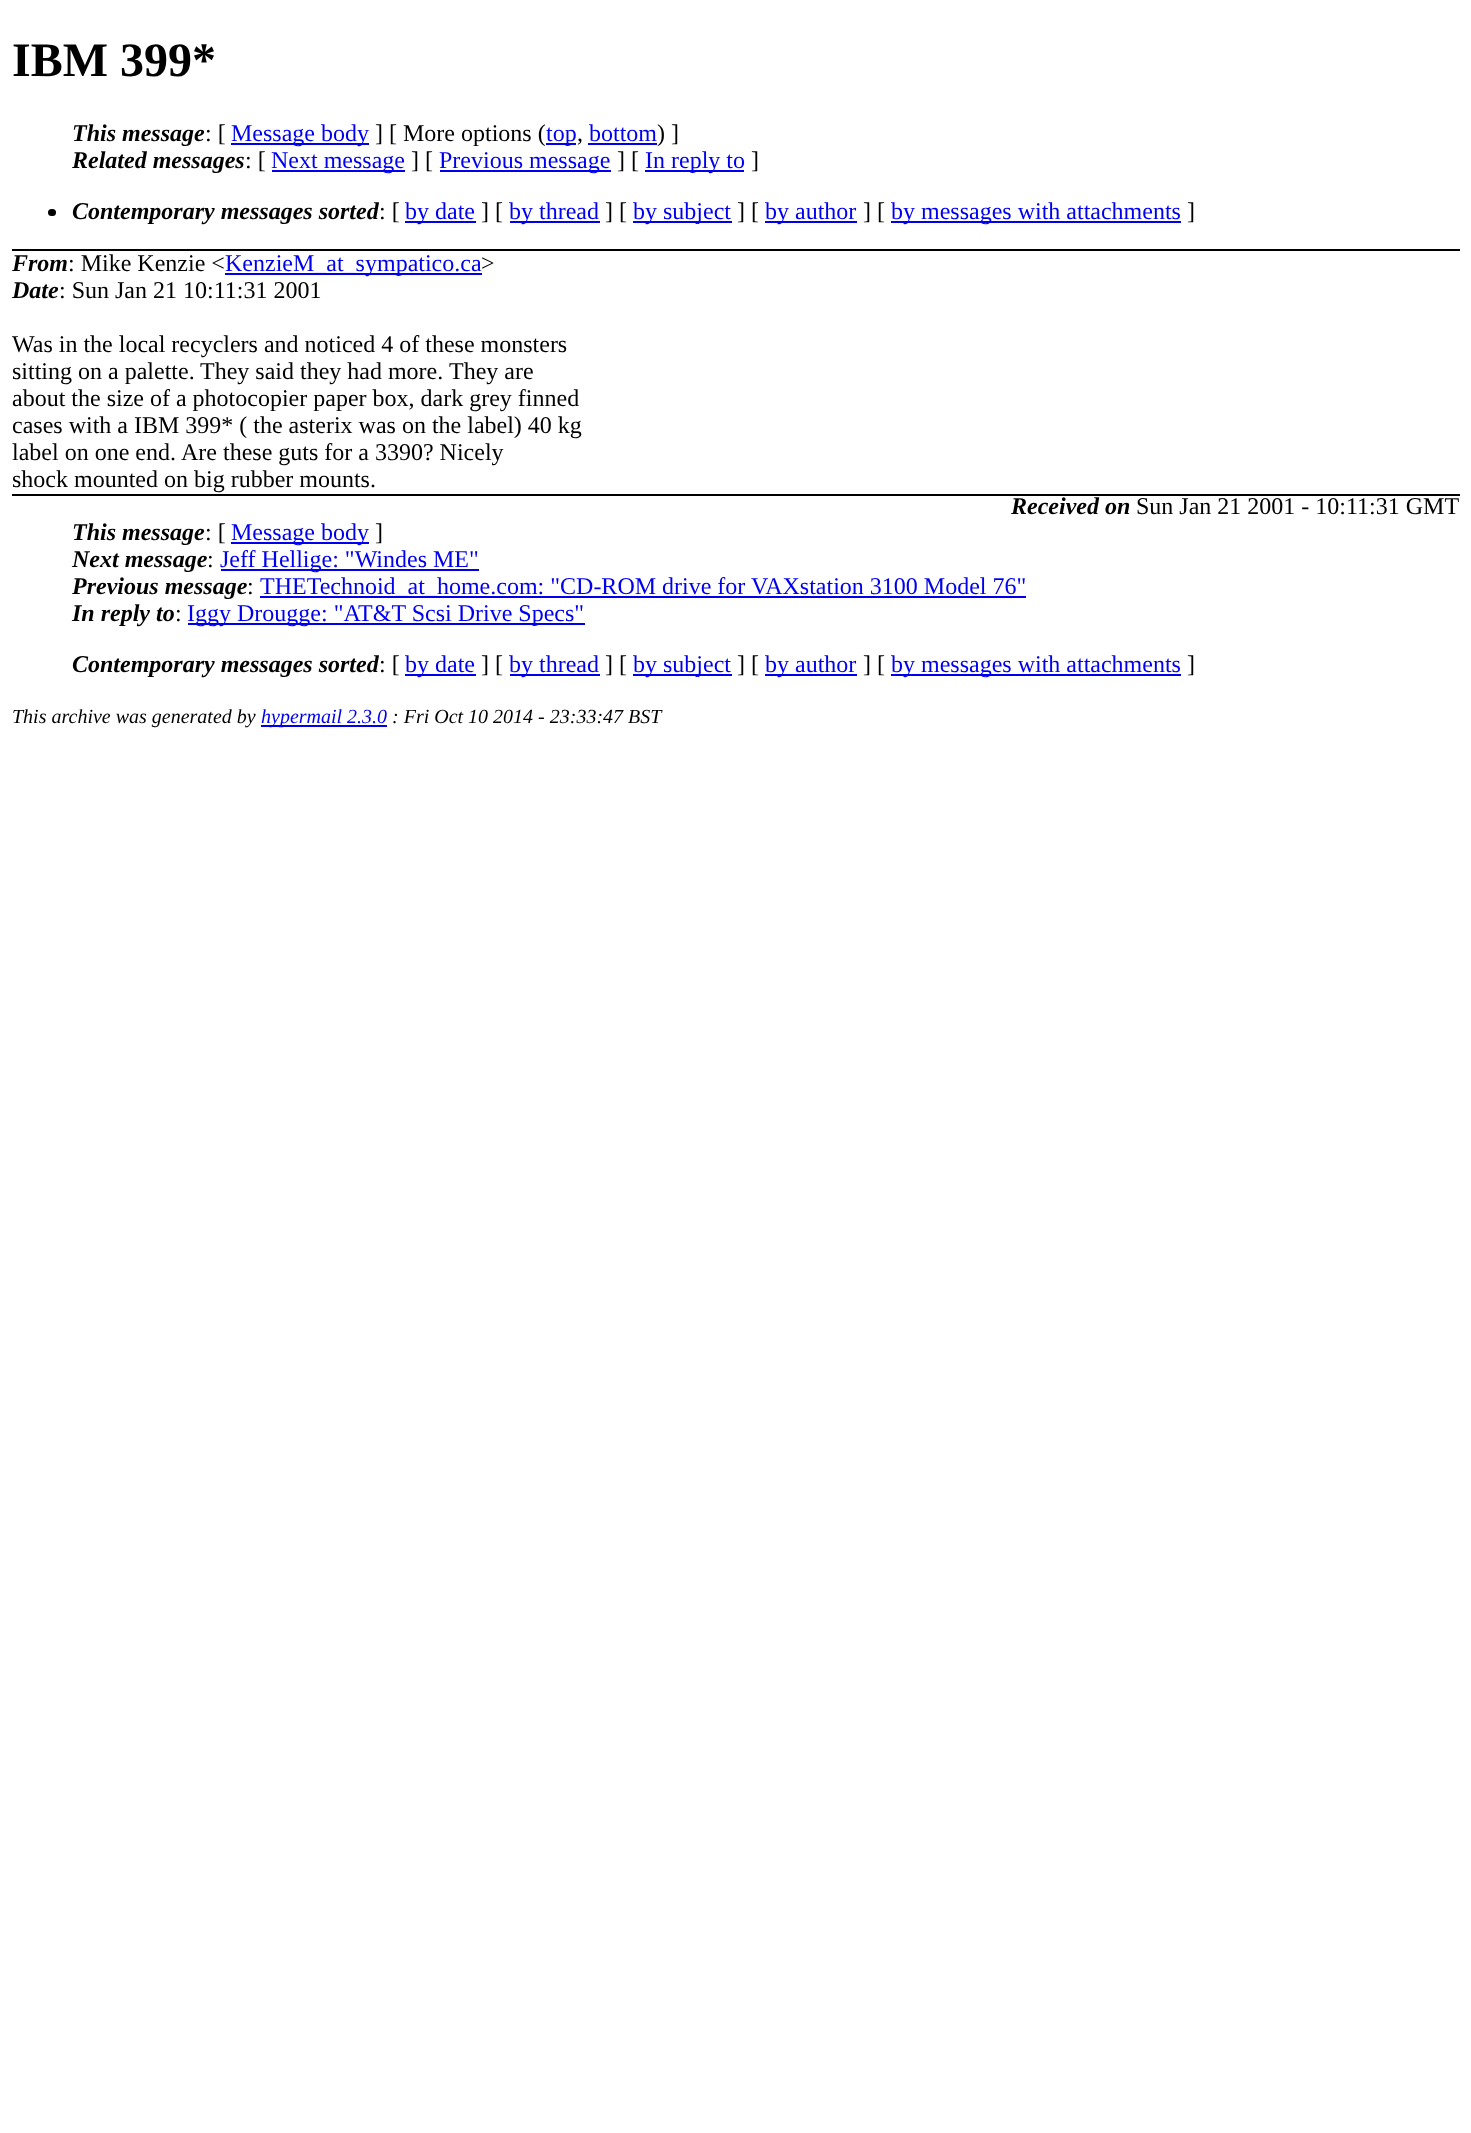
<svg xmlns="http://www.w3.org/2000/svg" width="1471" height="2133" viewBox="0 0 1471 2133">
  <rect width="100%" height="100%" fill="#ffffff"/>
  <rect x="12" y="249" width="1448" height="2" fill="#000000"/>
  <text x="12" y="76" font-family="Liberation Serif" font-size="48" font-weight="bold" fill="#000000">IBM 399*</text>
  <text x="72" y="141" font-family="Liberation Serif" font-size="24" font-weight="bold" font-style="italic" fill="#000000">This message</text>
  <text x="205" y="141" font-family="Liberation Serif" font-size="24" fill="#000000">: [</text>
  <rect x="231" y="143" width="138" height="2" fill="#0000ee"/>
  <text x="231" y="141" font-family="Liberation Serif" font-size="24" fill="#0000ee">Message body</text>
  <text x="375" y="141" font-family="Liberation Serif" font-size="24" fill="#000000">] [ More options (</text>
  <rect x="546" y="143" width="30" height="2" fill="#0000ee"/>
  <text x="546" y="141" font-family="Liberation Serif" font-size="24" fill="#0000ee">top</text>
  <text x="577" y="141" font-family="Liberation Serif" font-size="24" fill="#000000">,</text>
  <text x="589" y="141" font-family="Liberation Serif" font-size="24" fill="#0000ee">bottom</text>
  <rect x="588" y="143" width="69" height="2" fill="#0000ee"/>
  <text x="657" y="141" font-family="Liberation Serif" font-size="24" fill="#000000">) ]</text>
  <text x="72" y="168" font-family="Liberation Serif" font-size="24" font-weight="bold" font-style="italic" fill="#000000">Related messages</text>
  <text x="245" y="168" font-family="Liberation Serif" font-size="24" fill="#000000">: [</text>
  <rect x="272" y="170" width="133" height="2" fill="#0000ee"/>
  <text x="271" y="168" font-family="Liberation Serif" font-size="24" fill="#0000ee">Next message</text>
  <text x="411" y="168" font-family="Liberation Serif" font-size="24" fill="#000000">] [</text>
  <rect x="440" y="170" width="171" height="2" fill="#0000ee"/>
  <text x="439" y="168" font-family="Liberation Serif" font-size="24" fill="#0000ee">Previous message</text>
  <text x="617" y="168" font-family="Liberation Serif" font-size="24" fill="#000000">] [</text>
  <rect x="645" y="170" width="99" height="2" fill="#0000ee"/>
  <text x="645" y="168" font-family="Liberation Serif" font-size="24" fill="#0000ee">In reply to</text>
  <text x="751" y="168" font-family="Liberation Serif" font-size="24" fill="#000000">]</text>
  <rect x="48" y="209" width="8" height="7" rx="3.5" fill="#000000"/>
  <text x="72" y="219" font-family="Liberation Serif" font-size="24" font-weight="bold" font-style="italic" fill="#000000">Contemporary messages sorted</text>
  <text x="379" y="219" font-family="Liberation Serif" font-size="24" fill="#000000">: [</text>
  <rect x="405" y="221" width="71" height="2" fill="#0000ee"/>
  <text x="405" y="219" font-family="Liberation Serif" font-size="24" fill="#0000ee">by date</text>
  <text x="481" y="219" font-family="Liberation Serif" font-size="24" fill="#000000">] [</text>
  <rect x="510" y="221" width="90" height="2" fill="#0000ee"/>
  <text x="509" y="219" font-family="Liberation Serif" font-size="24" fill="#0000ee">by thread</text>
  <text x="605" y="219" font-family="Liberation Serif" font-size="24" fill="#000000">] [</text>
  <rect x="633" y="221" width="99" height="2" fill="#0000ee"/>
  <text x="633" y="219" font-family="Liberation Serif" font-size="24" fill="#0000ee">by subject</text>
  <text x="737" y="219" font-family="Liberation Serif" font-size="24" fill="#000000">] [</text>
  <rect x="765" y="221" width="92" height="2" fill="#0000ee"/>
  <text x="765" y="219" font-family="Liberation Serif" font-size="24" fill="#0000ee">by author</text>
  <text x="863" y="219" font-family="Liberation Serif" font-size="24" fill="#000000">] [</text>
  <rect x="891" y="221" width="290" height="2" fill="#0000ee"/>
  <text x="891" y="219" font-family="Liberation Serif" font-size="24" fill="#0000ee">by messages with attachments</text>
  <text x="1187" y="219" font-family="Liberation Serif" font-size="24" fill="#000000">]</text>
  <text x="12" y="271" font-family="Liberation Serif" font-size="24" font-weight="bold" font-style="italic" fill="#000000">From</text>
  <text x="68" y="271" font-family="Liberation Serif" font-size="24" fill="#000000">: Mike Kenzie &lt;</text>
  <rect x="225" y="273" width="257" height="2" fill="#0000ee"/>
  <text x="225" y="271" font-family="Liberation Serif" font-size="24" fill="#0000ee">KenzieM_at_sympatico.ca</text>
  <text x="481" y="271" font-family="Liberation Serif" font-size="24" fill="#000000">&gt;</text>
  <text x="12" y="298" font-family="Liberation Serif" font-size="24" font-weight="bold" font-style="italic" fill="#000000">Date</text>
  <text x="59" y="298" font-family="Liberation Serif" font-size="24" fill="#000000">: Sun Jan 21 10:11:31 2001</text>
  <text x="12" y="352" font-family="Liberation Serif" font-size="24" fill="#000000">Was in the local recyclers and noticed 4 of these monsters</text>
  <text x="12" y="379" font-family="Liberation Serif" font-size="24" fill="#000000">sitting on a palette.</text>
  <text x="200" y="379" font-family="Liberation Serif" font-size="24" fill="#000000">They said they had more.</text>
  <text x="449" y="379" font-family="Liberation Serif" font-size="24" fill="#000000">They are</text>
  <text x="12" y="406" font-family="Liberation Serif" font-size="24" fill="#000000">about the size of a photocopier paper box, dark grey finned</text>
  <text x="12" y="433" font-family="Liberation Serif" font-size="24" fill="#000000">cases with a IBM 399* ( the asterix was on the label) 40 kg</text>
  <text x="12" y="460" font-family="Liberation Serif" font-size="24" fill="#000000">label on one end.</text>
  <text x="181" y="460" font-family="Liberation Serif" font-size="24" fill="#000000">Are these guts for a 3390? Nicely</text>
  <text x="12" y="487" font-family="Liberation Serif" font-size="24" fill="#000000">shock mounted on big rubber mounts.</text>
  <text x="1011" y="514" font-family="Liberation Serif" font-size="24" font-weight="bold" font-style="italic" fill="#000000">Received on</text>
  <text x="1136" y="514" font-family="Liberation Serif" font-size="24" fill="#000000">Sun Jan 21 2001 - 10:11:31 GMT</text>
  <rect x="12" y="494" width="1448" height="2" fill="#000000"/>
  <text x="72" y="540" font-family="Liberation Serif" font-size="24" font-weight="bold" font-style="italic" fill="#000000">This message</text>
  <text x="205" y="540" font-family="Liberation Serif" font-size="24" fill="#000000">: [</text>
  <rect x="231" y="542" width="138" height="2" fill="#0000ee"/>
  <text x="231" y="540" font-family="Liberation Serif" font-size="24" fill="#0000ee">Message body</text>
  <text x="375" y="540" font-family="Liberation Serif" font-size="24" fill="#000000">]</text>
  <text x="72" y="567" font-family="Liberation Serif" font-size="24" font-weight="bold" font-style="italic" fill="#000000">Next message</text>
  <text x="207" y="567" font-family="Liberation Serif" font-size="24" fill="#000000">:</text>
  <rect x="221" y="569" width="258" height="2" fill="#0000ee"/>
  <text x="220" y="567" font-family="Liberation Serif" font-size="24" fill="#0000ee">Jeff Hellige: "Windes ME"</text>
  <text x="72" y="594" font-family="Liberation Serif" font-size="24" font-weight="bold" font-style="italic" fill="#000000">Previous message</text>
  <text x="247" y="594" font-family="Liberation Serif" font-size="24" fill="#000000">:</text>
  <rect x="260" y="596" width="766" height="2" fill="#0000ee"/>
  <text x="260" y="594" font-family="Liberation Serif" font-size="24" fill="#0000ee">THETechnoid_at_home.com: "CD-ROM drive for VAXstation 3100 Model 76"</text>
  <text x="72" y="621" font-family="Liberation Serif" font-size="24" font-weight="bold" font-style="italic" fill="#000000">In reply to</text>
  <text x="175" y="621" font-family="Liberation Serif" font-size="24" fill="#000000">:</text>
  <rect x="188" y="623" width="397" height="2" fill="#0000ee"/>
  <text x="187" y="621" font-family="Liberation Serif" font-size="24" fill="#0000ee">Iggy Drougge: "AT&amp;T Scsi Drive Specs"</text>
  <text x="72" y="672" font-family="Liberation Serif" font-size="24" font-weight="bold" font-style="italic" fill="#000000">Contemporary messages sorted</text>
  <text x="379" y="672" font-family="Liberation Serif" font-size="24" fill="#000000">: [</text>
  <rect x="405" y="674" width="71" height="2" fill="#0000ee"/>
  <text x="405" y="672" font-family="Liberation Serif" font-size="24" fill="#0000ee">by date</text>
  <text x="481" y="672" font-family="Liberation Serif" font-size="24" fill="#000000">] [</text>
  <rect x="510" y="674" width="90" height="2" fill="#0000ee"/>
  <text x="509" y="672" font-family="Liberation Serif" font-size="24" fill="#0000ee">by thread</text>
  <text x="605" y="672" font-family="Liberation Serif" font-size="24" fill="#000000">] [</text>
  <rect x="633" y="674" width="99" height="2" fill="#0000ee"/>
  <text x="633" y="672" font-family="Liberation Serif" font-size="24" fill="#0000ee">by subject</text>
  <text x="737" y="672" font-family="Liberation Serif" font-size="24" fill="#000000">] [</text>
  <rect x="765" y="674" width="92" height="2" fill="#0000ee"/>
  <text x="765" y="672" font-family="Liberation Serif" font-size="24" fill="#0000ee">by author</text>
  <text x="863" y="672" font-family="Liberation Serif" font-size="24" fill="#000000">] [</text>
  <rect x="891" y="674" width="290" height="2" fill="#0000ee"/>
  <text x="891" y="672" font-family="Liberation Serif" font-size="24" fill="#0000ee">by messages with attachments</text>
  <text x="1187" y="672" font-family="Liberation Serif" font-size="24" fill="#000000">]</text>
  <text x="12" y="723" font-family="Liberation Serif" font-size="20" font-style="italic" fill="#000000">This archive was generated by</text>
  <rect x="261" y="725" width="126" height="2" fill="#0000ee"/>
  <text x="261" y="723" font-family="Liberation Serif" font-size="20" font-style="italic" fill="#0000ee">hypermail 2.3.0</text>
  <text x="392" y="723" font-family="Liberation Serif" font-size="20" font-style="italic" fill="#000000">: Fri Oct 10 2014 - 23:33:47 BST</text>
</svg>
